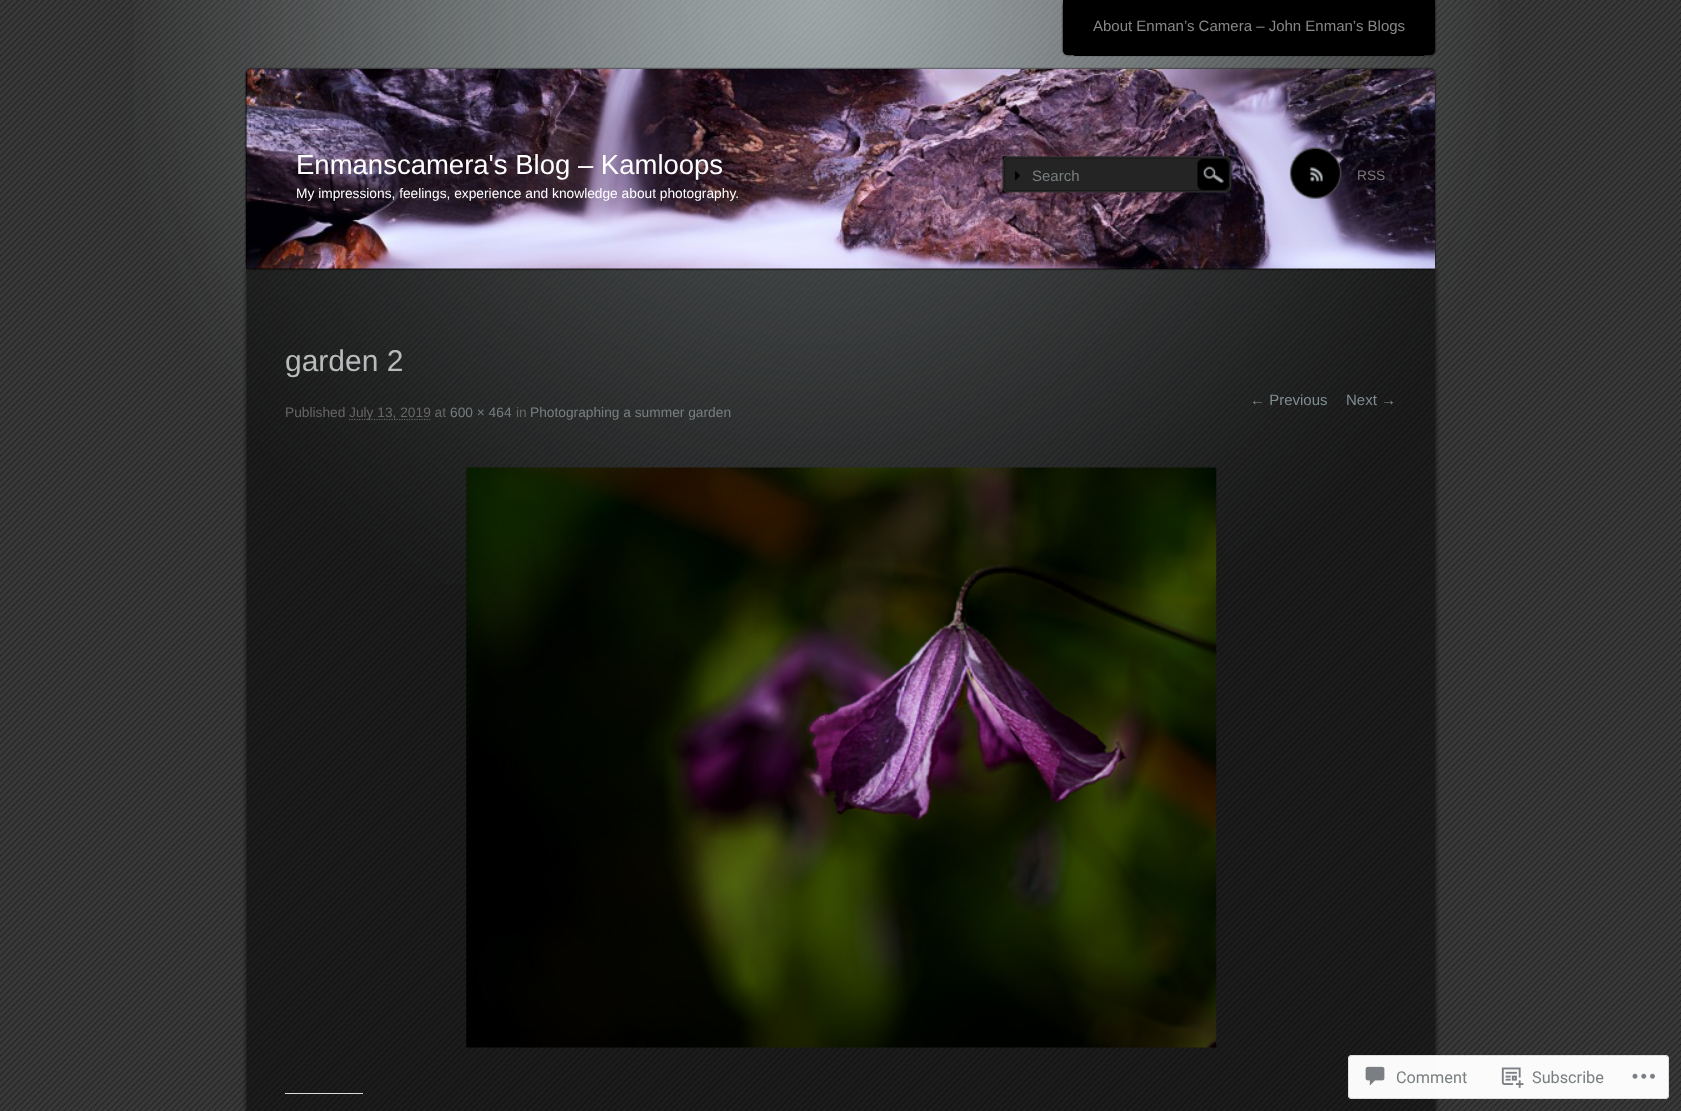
<svg xmlns="http://www.w3.org/2000/svg" width="1681" height="1111" viewBox="0 0 1681 1111">
  <defs>
    <filter id="blur1" x="-50%" y="-200%" width="200%" height="500%"><feGaussianBlur stdDeviation="1"/></filter>
  </defs>
  <rect width="100%" height="100%" fill="#ffffff"/>
  <image x="0" y="0" width="1681" height="1111" href="img1.png"/>
  <image x="134" y="0" width="1365" height="584" href="img2.png"/>
  <rect x="1063" y="0" width="372" height="55" rx="5" fill="#000000" filter="url(#blur1)"/>
  <path d="M1063 0H1435V50C1435 53 1433 55 1430 55H1068C1065 55 1063 53 1063 50Z" fill="#000000"/>
  <rect x="1074" y="55" width="350" height="1" fill="#000000"/>
  <text x="1093" y="31" font-family="Liberation Sans" font-size="15" fill="#888888">About Enman’s Camera – John Enman’s Blogs</text>
  <image x="243" y="268" width="1196" height="843" href="img7.png"/>
  <rect x="246" y="69" width="1189" height="200" rx="5" fill="#000000" filter="url(#blur1)"/>
  <path d="M251 69H1430C1433 69 1435 71 1435 74V269H246V74C246 71 248 69 251 69Z" fill="#000000"/>
  <image x="246" y="68" width="1189" height="201" href="img3.png"/>
  <text x="296" y="174" font-family="Liberation Sans" font-size="27.5" fill="#ffffff">Enmanscamera's Blog – Kamloops</text>
  <text x="296" y="198" font-family="Liberation Sans" font-size="13.75" fill="#ffffff">My impressions, feelings, experience and knowledge about photography.</text>
  <image x="1002" y="156" width="197" height="37" href="img4.png"/>
  <text x="1032" y="181" font-family="Liberation Sans" font-size="15" fill="#797f80">Search</text>
  <image x="1197" y="156" width="35" height="37" href="img5.png"/>
  <image x="1289" y="147" width="53" height="52" href="img6.png"/>
  <text x="1357" y="180" font-family="Liberation Sans" font-size="13.75" fill="#777777">RSS</text>
  <text x="285" y="371" font-family="Liberation Sans" font-size="30" fill="#b8babb">garden 2</text>
  <text x="1250" y="405" font-family="Liberation Sans" font-size="15" fill="#7f8e91">← Previous</text>
  <text x="1346" y="405" font-family="Liberation Sans" font-size="15" fill="#7f8e91">Next →</text>
  <text x="285" y="417" font-family="Liberation Sans" font-size="13.75" fill="#666666">Published</text>
  <path d="M349 419.5H431" fill="none" stroke="#666666" stroke-width="1.2" stroke-dasharray="1.25 1.25"/>
  <text x="349" y="417" font-family="Liberation Sans" font-size="13.75" fill="#666666">July 13, 2019 at</text>
  <text x="450" y="417" font-family="Liberation Sans" font-size="13.75" fill="#797f80">600 × 464</text>
  <text x="516" y="417" font-family="Liberation Sans" font-size="13.75" fill="#666666">in</text>
  <text x="530" y="417" font-family="Liberation Sans" font-size="13.75" fill="#797f80">Photographing a summer garden</text>
  <image x="466" y="467" width="751" height="581" href="img8.png"/>
  <rect x="285" y="1093" width="78" height="1" fill="#dcdcde"/>
  <rect x="1348" y="1055" width="321" height="44" rx="4" fill="#ffffff" fill-opacity="0.98"/>
  <rect x="1348.5" y="1055.5" width="320" height="43" rx="3.5" fill="none" stroke="#dcdcde" stroke-opacity="0.98"/>
  <image x="1365" y="1066" width="20" height="20" href="img9.png"/>
  <text x="1396" y="1083" font-family="Roboto" font-size="16.25" fill="#797f80">Comment</text>
  <image x="1501" y="1067" width="23" height="21" href="img10.png"/>
  <text x="1532" y="1083" font-family="Roboto" font-size="16.25" fill="#797f80">Subscribe</text>
  <image x="1632" y="1073" width="23" height="6" href="img11.png"/>
</svg>
